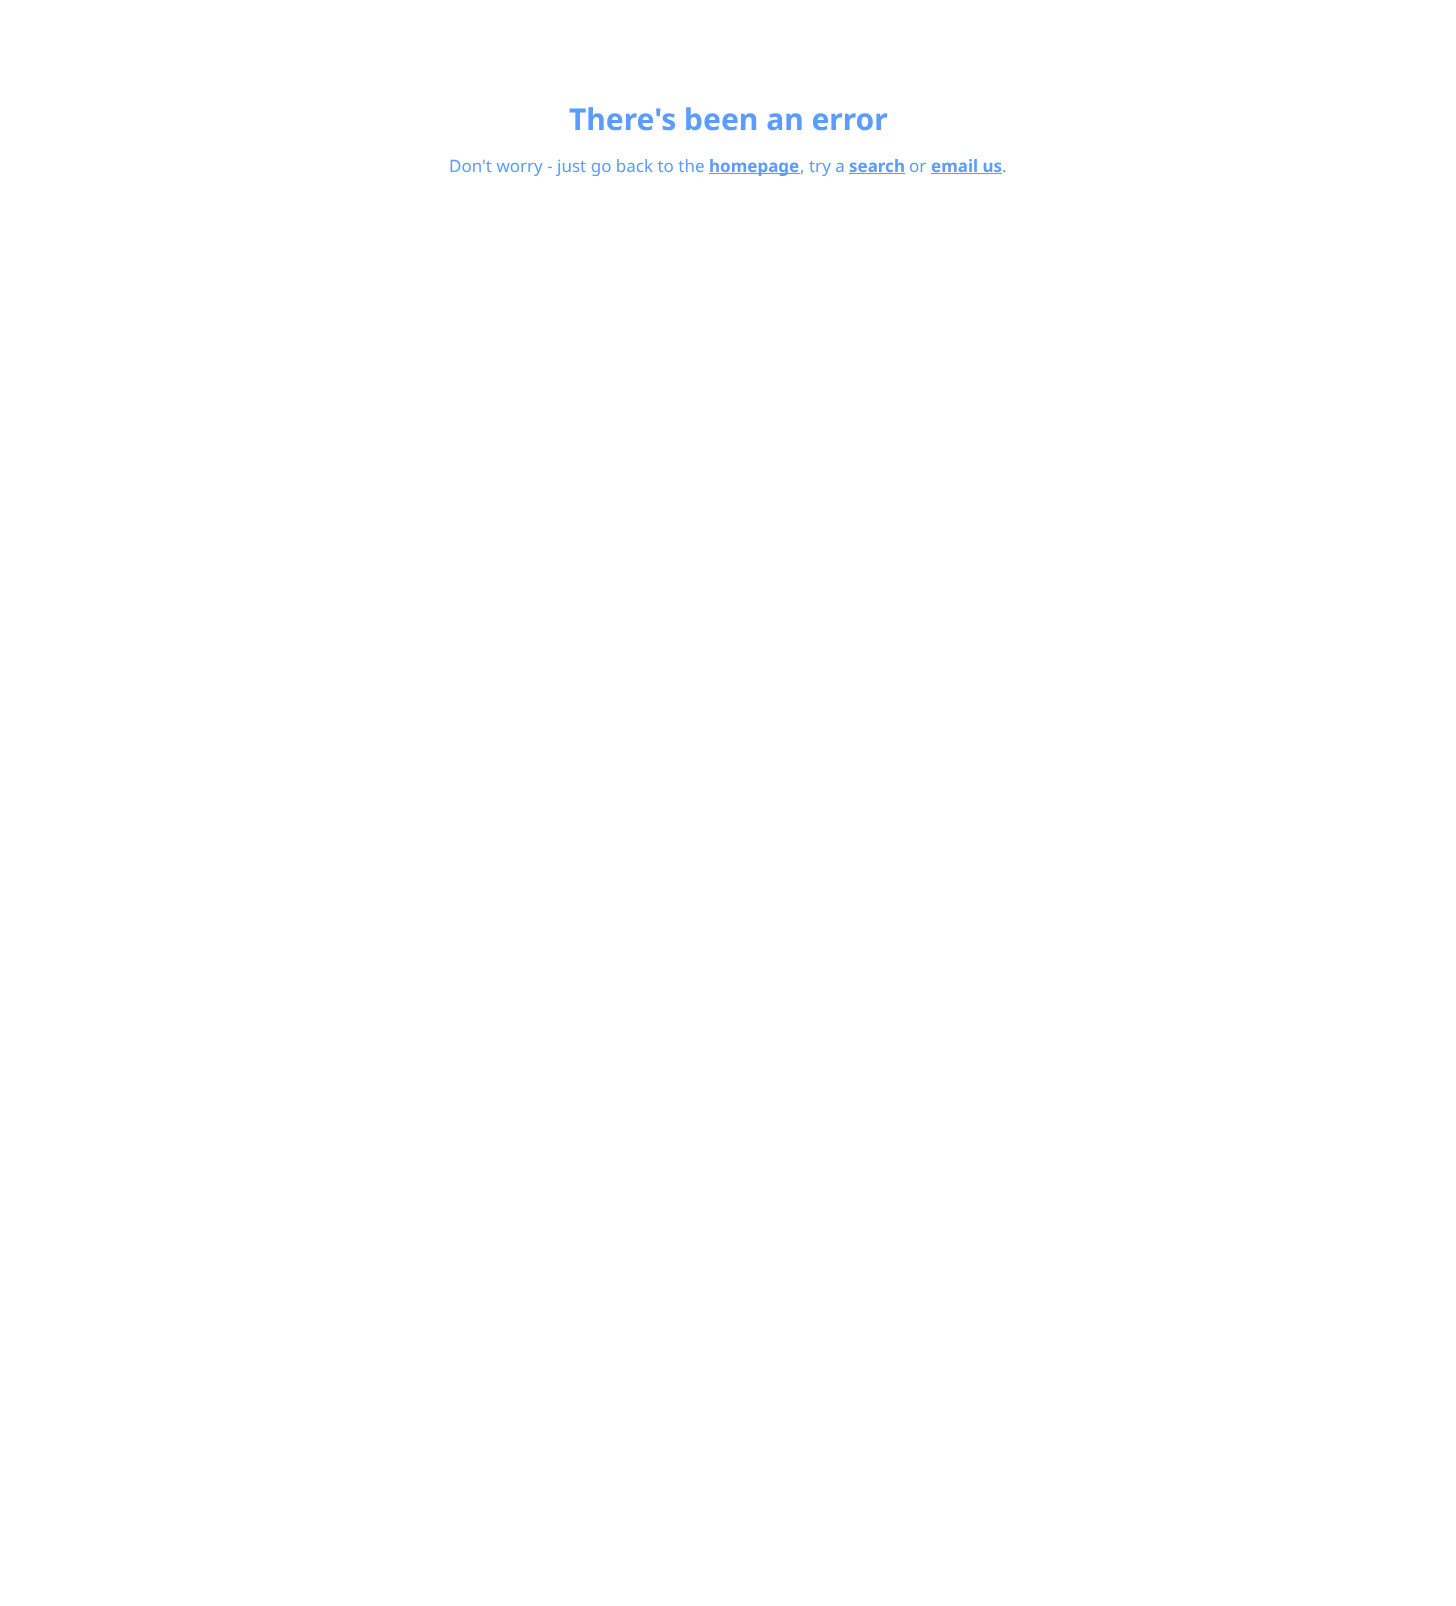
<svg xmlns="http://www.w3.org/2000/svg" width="1456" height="1606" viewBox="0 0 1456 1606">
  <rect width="100%" height="100%" fill="#ffffff"/>
  <text x="569" y="130" font-family="Noto Sans" font-size="30" font-weight="bold" fill="#5a9cff">There's been an error</text>
  <text x="449" y="172" font-family="Noto Sans" font-size="17" fill="#5a9cff">Don't worry - just go back to the</text>
  <rect x="709" y="173" width="91" height="1" fill="#5a9cff"/>
  <text x="709" y="172" font-family="Noto Sans" font-size="17" font-weight="bold" fill="#5a9cff">homepage</text>
  <text x="800" y="172" font-family="Noto Sans" font-size="17" fill="#5a9cff">, try a</text>
  <text x="849" y="172" font-family="Noto Sans" font-size="17" font-weight="bold" fill="#5a9cff">search</text>
  <rect x="849" y="173" width="56" height="1" fill="#5a9cff"/>
  <text x="909" y="172" font-family="Noto Sans" font-size="17" fill="#5a9cff">or</text>
  <text x="931" y="172" font-family="Noto Sans" font-size="17" font-weight="bold" fill="#5a9cff">email us</text>
  <rect x="931" y="173" width="71" height="1" fill="#5a9cff"/>
  <text x="1002" y="172" font-family="Noto Sans" font-size="17" fill="#5a9cff">.</text>
</svg>
